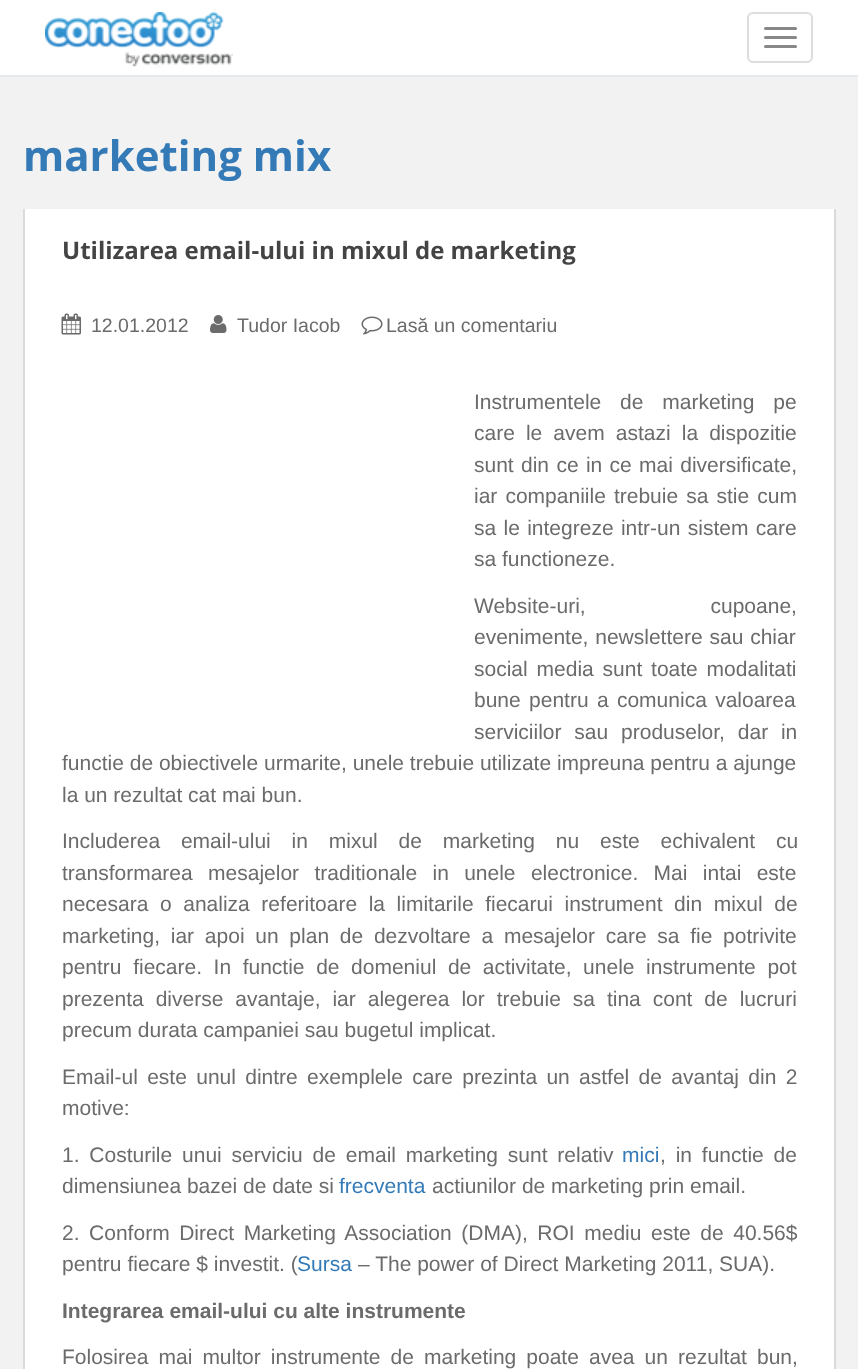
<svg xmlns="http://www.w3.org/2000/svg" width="858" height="1369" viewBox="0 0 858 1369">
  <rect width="100%" height="100%" fill="#f2f2f2"/>
  <rect x="0" y="0" width="858" height="75" fill="#ffffff"/>
  <rect x="0" y="75" width="858" height="2" fill="#e5e9ec"/>
  <image x="45" y="12" width="188" height="56" href="img1.png"/>
  <rect x="748" y="13" width="64" height="49" rx="5" fill="none" stroke="#dddddd" stroke-width="2"/>
  <rect x="764" y="27" width="33" height="3" rx="1.5" fill="#888888"/>
  <rect x="764" y="36" width="33" height="3" rx="1.5" fill="#888888"/>
  <rect x="764" y="45" width="33" height="3" rx="1.5" fill="#888888"/>
  <text x="23" y="171" font-family="Open Sans" font-size="42" font-weight="bold" fill="#337ab7">marketing mix</text>
  <rect x="25" y="209" width="809" height="1160" fill="#ffffff"/>
  <rect x="834" y="209" width="2" height="1160" fill="#dadada"/>
  <rect x="23" y="209" width="2" height="1160" fill="#dadada"/>
  <text x="62" y="259" font-family="Open Sans" font-size="24" font-weight="bold" fill="#444444">Utilizarea email-ului in mixul de marketing</text>
  <image x="61" y="313" width="20" height="22" href="img2.png"/>
  <text x="91" y="332" font-family="Liberation Sans" font-size="19.5" fill="#6b6b6b">12.01.2012</text>
  <image x="210" y="315" width="17" height="18" href="img3.png"/>
  <text x="237" y="332" font-family="Liberation Sans" font-size="19.5" fill="#6b6b6b">Tudor Iacob</text>
  <image x="361" y="316" width="22" height="19" href="img4.png"/>
  <text x="386" y="332" font-family="Liberation Sans" font-size="19.5" fill="#6b6b6b">Lasă un comentariu</text>
  <text x="474" y="409" word-spacing="13" font-family="Liberation Sans" font-size="21" fill="#6b6b6b">Instrumentele de marketing pe</text>
  <text x="474" y="440" word-spacing="5.25" font-family="Liberation Sans" font-size="21" fill="#6b6b6b">care le avem astazi la dispozitie</text>
  <text x="474" y="472" word-spacing="1.5" font-family="Liberation Sans" font-size="21" fill="#6b6b6b">sunt din ce in ce mai diversificate,</text>
  <text x="474" y="503" word-spacing="2.25" font-family="Liberation Sans" font-size="21" fill="#6b6b6b">iar companiile trebuie sa stie cum</text>
  <text x="474" y="535" word-spacing="1.5" font-family="Liberation Sans" font-size="21" fill="#6b6b6b">sa le integreze intr-un sistem care</text>
  <text x="474" y="566" font-family="Liberation Sans" font-size="21" fill="#6b6b6b">sa functioneze.</text>
  <text x="474" y="613" word-spacing="119" font-family="Liberation Sans" font-size="21" fill="#6b6b6b">Website-uri, cupoane,</text>
  <text x="474" y="644" word-spacing="1" font-family="Liberation Sans" font-size="21" fill="#6b6b6b">evenimente, newslettere sau chiar</text>
  <text x="474" y="676" word-spacing="3" font-family="Liberation Sans" font-size="21" fill="#6b6b6b">social media sunt toate modalitati</text>
  <text x="474" y="707" word-spacing="2.5" font-family="Liberation Sans" font-size="21" fill="#6b6b6b">bune pentru a comunica valoarea</text>
  <text x="474" y="739" word-spacing="7" font-family="Liberation Sans" font-size="21" fill="#6b6b6b">serviciilor sau produselor, dar in</text>
  <text x="62" y="770" font-family="Liberation Sans" font-size="21" fill="#6b6b6b">functie de obiectivele urmarite, unele trebuie utilizate impreuna pentru a ajunge</text>
  <text x="62" y="802" font-family="Liberation Sans" font-size="21" fill="#6b6b6b">la un rezultat cat mai bun.</text>
  <text x="62" y="848" word-spacing="15" font-family="Liberation Sans" font-size="21" fill="#6b6b6b">Includerea email-ului in mixul de marketing nu este echivalent cu</text>
  <text x="62" y="880" word-spacing="9.5" font-family="Liberation Sans" font-size="21" fill="#6b6b6b">transformarea mesajelor traditionale in unele electronice. Mai intai este</text>
  <text x="62" y="911" word-spacing="5.75" font-family="Liberation Sans" font-size="21" fill="#6b6b6b">necesara o analiza referitoare la limitarile fiecarui instrument din mixul de</text>
  <text x="62" y="943" word-spacing="4.9" font-family="Liberation Sans" font-size="21" fill="#6b6b6b">marketing, iar apoi un plan de dezvoltare a mesajelor care sa fie potrivite</text>
  <text x="62" y="974" word-spacing="5.75" font-family="Liberation Sans" font-size="21" fill="#6b6b6b">pentru fiecare. In functie de domeniul de activitate, unele instrumente pot</text>
  <text x="62" y="1006" word-spacing="6.1" font-family="Liberation Sans" font-size="21" fill="#6b6b6b">prezenta diverse avantaje, iar alegerea lor trebuie sa tina cont de lucruri</text>
  <text x="62" y="1037" font-family="Liberation Sans" font-size="21" fill="#6b6b6b">precum durata campaniei sau bugetul implicat.</text>
  <text x="62" y="1084" word-spacing="3.5" font-family="Liberation Sans" font-size="21" fill="#6b6b6b">Email-ul este unul dintre exemplele care prezinta un astfel de avantaj din 2</text>
  <text x="62" y="1115" font-family="Liberation Sans" font-size="21" fill="#6b6b6b">motive:</text>
  <text x="62" y="1162" word-spacing="4" font-family="Liberation Sans" font-size="21" fill="#6b6b6b">1. Costurile unui serviciu de email marketing sunt relativ</text>
  <text x="622" y="1162" font-family="Liberation Sans" font-size="21" fill="#337ab7">mici</text>
  <text x="660" y="1162" word-spacing="4" font-family="Liberation Sans" font-size="21" fill="#6b6b6b">, in functie de</text>
  <text x="62" y="1193" font-family="Liberation Sans" font-size="21" fill="#6b6b6b">dimensiunea bazei de date si</text>
  <text x="339" y="1193" font-family="Liberation Sans" font-size="21" fill="#337ab7">frecventa</text>
  <text x="432" y="1193" font-family="Liberation Sans" font-size="21" fill="#6b6b6b">actiunilor de marketing prin email.</text>
  <text x="62" y="1240" word-spacing="3.75" font-family="Liberation Sans" font-size="21" fill="#6b6b6b">2. Conform Direct Marketing Association (DMA), ROI mediu este de 40.56$</text>
  <text x="62" y="1271" font-family="Liberation Sans" font-size="21" fill="#6b6b6b">pentru fiecare $ investit. (</text>
  <text x="297" y="1271" font-family="Liberation Sans" font-size="21" fill="#337ab7">Sursa</text>
  <text x="358" y="1271" font-family="Liberation Sans" font-size="21" fill="#6b6b6b">– The power of Direct Marketing 2011, SUA).</text>
  <text x="62" y="1318" font-family="Liberation Sans" font-size="21" font-weight="bold" fill="#6b6b6b">Integrarea email-ului cu alte instrumente</text>
  <text x="62" y="1364" word-spacing="4.25" font-family="Liberation Sans" font-size="21" fill="#6b6b6b">Folosirea mai multor instrumente de marketing poate avea un rezultat bun,</text>
</svg>
